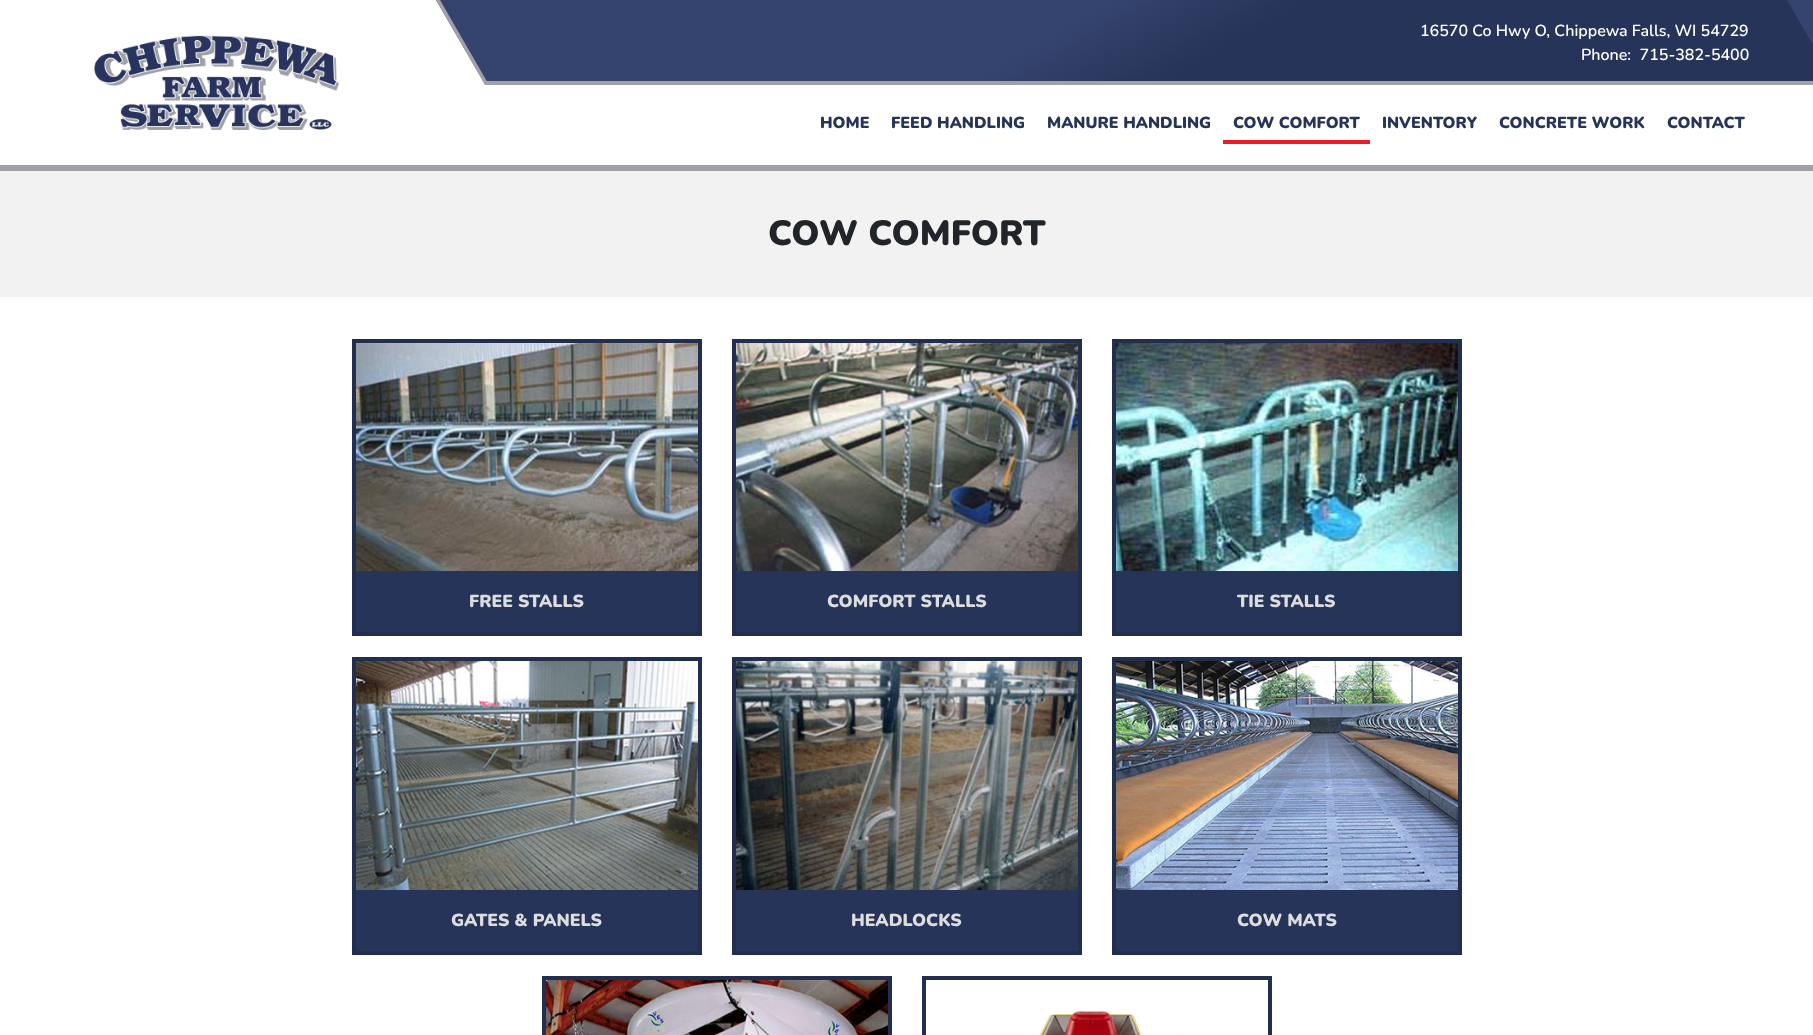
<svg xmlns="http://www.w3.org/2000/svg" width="1813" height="1035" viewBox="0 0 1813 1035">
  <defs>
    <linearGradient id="g1" gradientUnits="userSpaceOnUse" x1="1114" y1="0" x2="1161" y2="81"><stop offset="0" stop-color="#35446e"/><stop offset="1" stop-color="#273459"/></linearGradient>
    <linearGradient id="g2" gradientUnits="userSpaceOnUse" x1="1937" y1="0" x2="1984" y2="81"><stop offset="0" stop-color="#35446e"/><stop offset="1" stop-color="#273459"/></linearGradient>
  </defs>
  <rect width="100%" height="100%" fill="#ffffff"/>
  <rect x="0" y="165" width="1813" height="6" fill="#9fa1a6"/>
  <image x="94" y="35" width="245" height="95" href="img1.png"/>
  <path d="M436 0L483 81H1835L1788 0Z" fill="url(#g1)"/>
  <path d="M483 81H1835L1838 85H485Z" fill="#9fa1a6"/>
  <path d="M436 0H440L489 85H485Z" fill="#9fa1a6"/>
  <text x="1420" y="36" font-family="Nunito" font-size="16" font-weight="600" fill="#ffffff">16570 Co Hwy O, Chippewa Falls, WI 54729</text>
  <text x="1581" y="60" font-family="Nunito" font-size="16" font-weight="600" fill="#ffffff" xml:space="preserve">Phone:  715-382-5400</text>
  <path d="M1787 0H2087L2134 81H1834Z" fill="url(#g2)"/>
  <text x="820" y="128" font-family="Nunito" font-size="16" font-weight="900" fill="#273459">HOME</text>
  <text x="891" y="128" font-family="Nunito" font-size="16" font-weight="900" fill="#273459">FEED HANDLING</text>
  <text x="1047" y="128" font-family="Nunito" font-size="16" font-weight="900" fill="#273459">MANURE HANDLING</text>
  <rect x="1223" y="140" width="147" height="4" fill="#ed1c24"/>
  <text x="1233" y="128" font-family="Nunito" font-size="16" font-weight="900" fill="#273459">COW COMFORT</text>
  <text x="1382" y="128" font-family="Nunito" font-size="16" font-weight="900" fill="#273459">INVENTORY</text>
  <text x="1499" y="128" font-family="Nunito" font-size="16" font-weight="900" fill="#273459">CONCRETE WORK</text>
  <text x="1667" y="128" font-family="Nunito" font-size="16" font-weight="900" fill="#273459">CONTACT</text>
  <rect x="0" y="171" width="1813" height="126" fill="#f2f2f2"/>
  <text x="768" y="245" font-family="Nunito" font-size="35" font-weight="900" fill="#212529">COW COMFORT</text>
  <rect x="356" y="571" width="342" height="61" fill="#273459"/>
  <rect x="354" y="341" width="346" height="293" fill="none" stroke="#222e4e" stroke-width="4"/>
  <image x="356" y="343" width="342" height="228" href="img2.png"/>
  <text x="469" y="607" font-family="Nunito" font-size="17.5" font-weight="900" fill="#dddddd">FREE STALLS</text>
  <rect x="736" y="571" width="342" height="61" fill="#273459"/>
  <rect x="734" y="341" width="346" height="293" fill="none" stroke="#222e4e" stroke-width="4"/>
  <image x="736" y="343" width="342" height="228" href="img3.png"/>
  <text x="827" y="607" font-family="Nunito" font-size="17.5" font-weight="900" fill="#dddddd">COMFORT STALLS</text>
  <rect x="1116" y="571" width="342" height="61" fill="#273459"/>
  <rect x="1114" y="341" width="346" height="293" fill="none" stroke="#222e4e" stroke-width="4"/>
  <image x="1116" y="343" width="342" height="228" href="img4.png"/>
  <text x="1237" y="607" font-family="Nunito" font-size="17.5" font-weight="900" fill="#dddddd">TIE STALLS</text>
  <rect x="356" y="890" width="342" height="61" fill="#273459"/>
  <rect x="354" y="659" width="346" height="294" fill="none" stroke="#222e4e" stroke-width="4"/>
  <image x="356" y="661" width="342" height="229" href="img5.png"/>
  <text x="451" y="926" font-family="Nunito" font-size="17.5" font-weight="900" fill="#dddddd">GATES &amp; PANELS</text>
  <rect x="736" y="890" width="342" height="61" fill="#273459"/>
  <rect x="734" y="659" width="346" height="294" fill="none" stroke="#222e4e" stroke-width="4"/>
  <image x="736" y="661" width="342" height="229" href="img6.png"/>
  <text x="851" y="926" font-family="Nunito" font-size="17.5" font-weight="900" fill="#dddddd">HEADLOCKS</text>
  <rect x="1116" y="890" width="342" height="61" fill="#273459"/>
  <rect x="1114" y="659" width="346" height="294" fill="none" stroke="#222e4e" stroke-width="4"/>
  <image x="1116" y="661" width="342" height="229" href="img7.png"/>
  <text x="1237" y="926" font-family="Nunito" font-size="17.5" font-weight="900" fill="#dddddd">COW MATS</text>
  <rect x="544" y="978" width="346" height="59" fill="none" stroke="#222e4e" stroke-width="4"/>
  <image x="546" y="980" width="342" height="55" href="img8.png"/>
  <rect x="924" y="978" width="346" height="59" fill="none" stroke="#222e4e" stroke-width="4"/>
  <image x="926" y="980" width="342" height="55" href="img9.png"/>
</svg>
